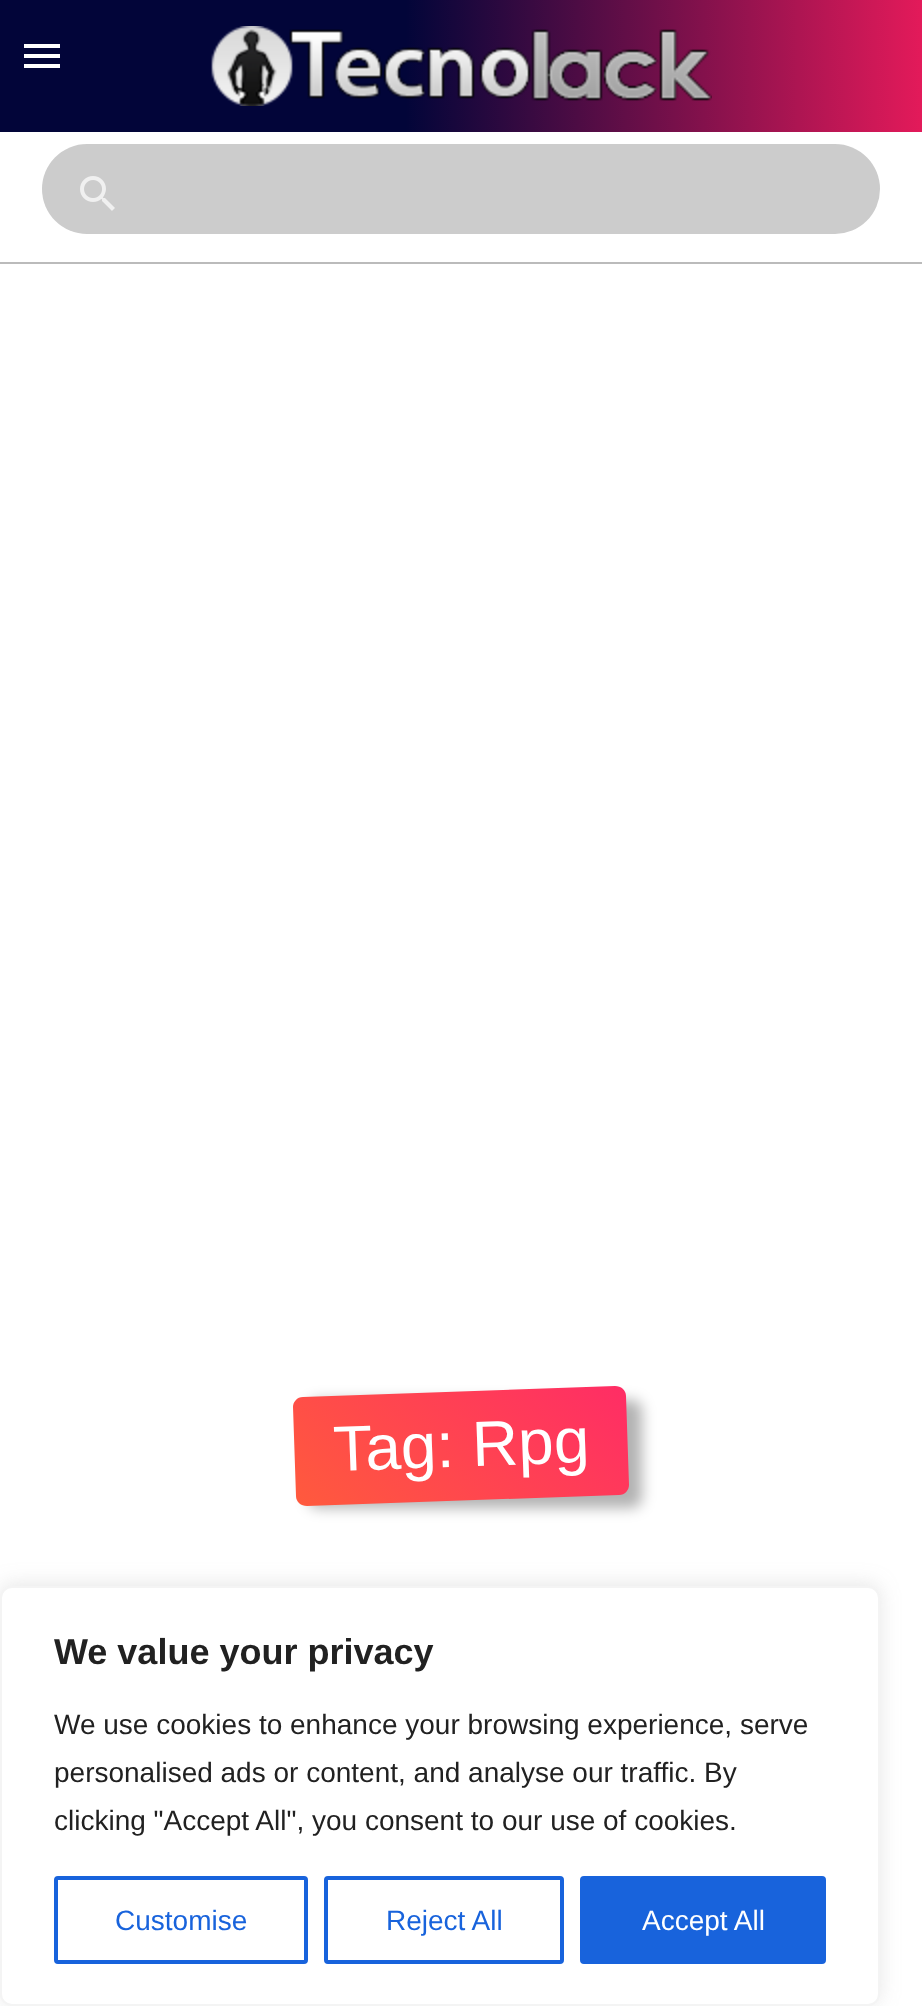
<svg xmlns="http://www.w3.org/2000/svg" width="922" height="2006" viewBox="0 0 922 2006">
  <defs>
    <linearGradient id="g1" gradientUnits="userSpaceOnUse" x1="0" y1="66" x2="922" y2="66"><stop offset="0.44" stop-color="#020539"/><stop offset="1" stop-color="#e31a5a"/></linearGradient>
    <filter id="blur1" x="-50%" y="-200%" width="200%" height="500%"><feGaussianBlur stdDeviation="7"/></filter>
    <linearGradient id="g2" gradientUnits="userSpaceOnUse" x1="354" y1="1560" x2="567" y2="1332"><stop offset="0" stop-color="#ff5a3d"/><stop offset="1" stop-color="#ff2d65"/></linearGradient>
    <filter id="blur2" x="-50%" y="-200%" width="200%" height="500%"><feGaussianBlur stdDeviation="10"/></filter>
  </defs>
  <rect width="100%" height="100%" fill="#ffffff"/>
  <rect x="0" y="0" width="922" height="132" fill="url(#g1)"/>
  <path d="M24 44H60V48H24ZM24 58V54H60V58ZM24 68V64H60V68Z" fill="#ffffff"/>
  <image x="211" y="26" width="501" height="80" href="img1.png"/>
  <rect x="0" y="262" width="922" height="2" fill="#bbbbbb"/>
  <rect x="42" y="144" width="838" height="90" rx="45" fill="#cccccc"/>
  <image x="80" y="176" width="35" height="35" href="img2.png"/>
  <rect x="308" y="1400" width="334" height="108" rx="10" fill="#000000" fill-opacity="0.3" filter="url(#blur1)"/>
  <path d="M303 1397L615 1386C621 1386 626 1390 626 1396L629 1485C629 1490 625 1495 619 1495L307 1506C301 1506 296 1502 296 1496L293 1407C293 1402 297 1397 303 1397Z" fill="url(#g2)"/>
  <text x="334" y="1471" transform="rotate(-2 334 1471)" font-family="Liberation Sans" font-size="64" fill="#ffffff">Tag: Rpg</text>
  <rect x="0" y="1584" width="880" height="420" rx="12" fill="#acabab" fill-opacity="0.3" filter="url(#blur2)"/>
  <rect x="1" y="1587" width="878" height="418" rx="11" fill="#ffffff" stroke="#f4f4f4" stroke-width="2"/>
  <text x="54" y="1664" font-family="Liberation Sans" font-size="36" font-weight="bold" fill="#212121">We value your privacy</text>
  <text x="54" y="1734" font-family="Liberation Sans" font-size="28" fill="#212121">We use cookies to enhance your browsing experience, serve</text>
  <text x="54" y="1782" font-family="Liberation Sans" font-size="28" fill="#212121">personalised ads or content, and analyse our traffic. By</text>
  <text x="54" y="1830" font-family="Liberation Sans" font-size="28" fill="#212121">clicking "Accept All", you consent to our use of cookies.</text>
  <rect x="56" y="1878" width="250" height="84" rx="2" fill="none" stroke="#1863dc" stroke-width="4"/>
  <text x="115" y="1930" font-family="Liberation Sans" font-size="28" fill="#1863dc">Customise</text>
  <rect x="326" y="1878" width="236" height="84" rx="2" fill="none" stroke="#1863dc" stroke-width="4"/>
  <text x="386" y="1930" font-family="Liberation Sans" font-size="28" fill="#1863dc">Reject All</text>
  <rect x="582" y="1878" width="242" height="84" rx="2" fill="#1863dc" stroke="#1863dc" stroke-width="4"/>
  <text x="642" y="1930" font-family="Liberation Sans" font-size="28" fill="#ffffff">Accept All</text>
</svg>
